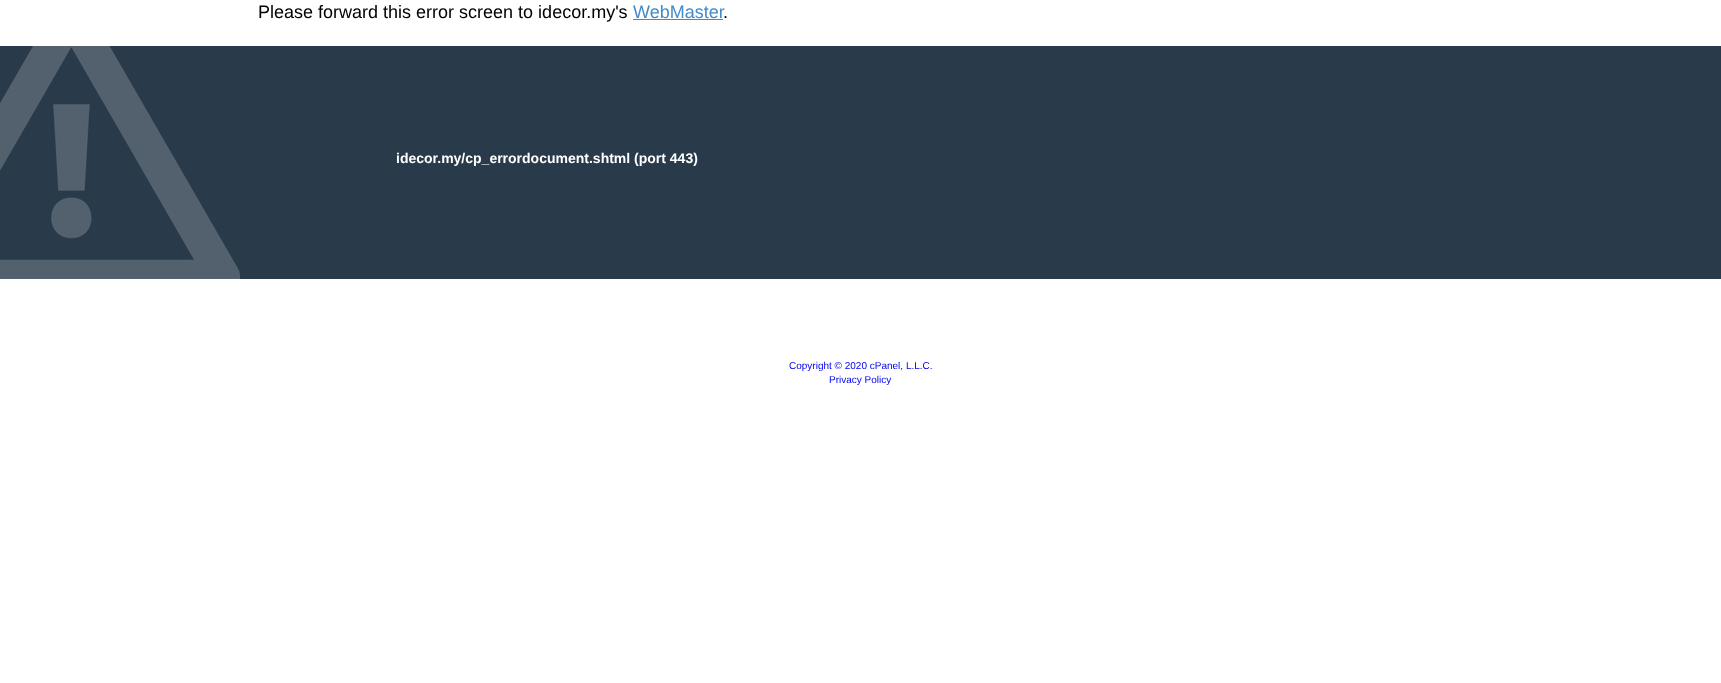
<svg xmlns="http://www.w3.org/2000/svg" width="1721" height="683" viewBox="0 0 1721 683">
  <rect width="100%" height="100%" fill="#ffffff"/>
  <text x="258" y="18" font-family="Liberation Sans" font-size="18" fill="#000000">Please forward this error screen to idecor.my's</text>
  <text x="633" y="18" font-family="Liberation Sans" font-size="18" fill="#428bca">WebMaster</text>
  <rect x="633" y="19" width="90" height="1" fill="#428bca"/>
  <text x="723" y="18" font-family="Liberation Sans" font-size="18" fill="#000000">.</text>
  <rect x="0" y="46" width="1721" height="233" fill="#293a4a"/>
  <image x="0" y="46" width="240" height="233" href="img1.png"/>
  <text x="396" y="163" font-family="Liberation Sans" font-size="14" font-weight="bold" fill="#ffffff">idecor.my/cp_errordocument.shtml (port 443)</text>
  <text x="789" y="369" font-family="Liberation Sans" font-size="10" fill="#0000ee">Copyright © 2020 cPanel, L.L.C.</text>
  <text x="829" y="383" font-family="Liberation Sans" font-size="10" fill="#0000ee">Privacy Policy</text>
</svg>
